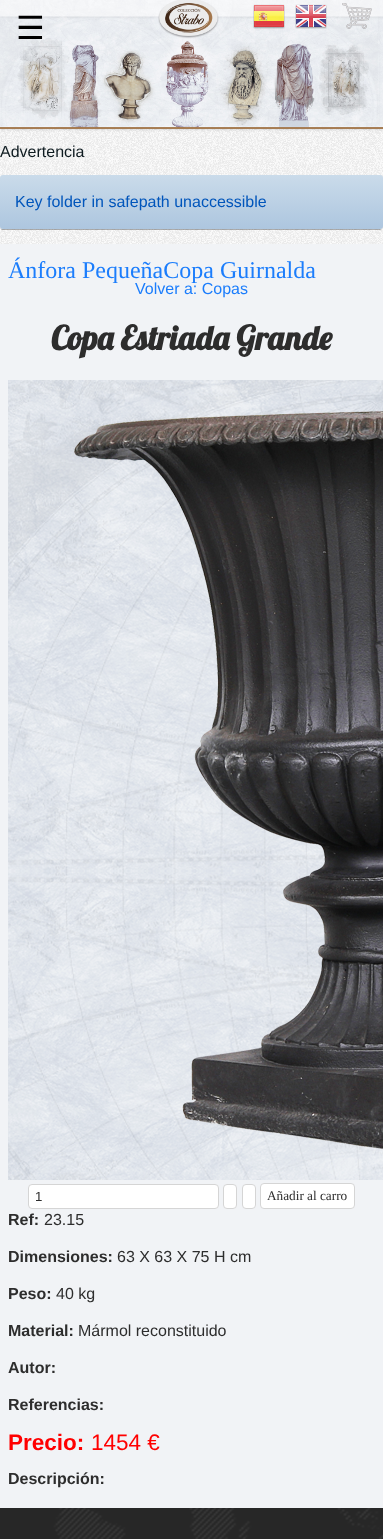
<svg xmlns="http://www.w3.org/2000/svg" width="383" height="1539" viewBox="0 0 383 1539">
  <defs>
    <filter id="blur1" x="-50%" y="-200%" width="200%" height="500%"><feGaussianBlur stdDeviation="1.5"/></filter>
    <linearGradient id="g1" gradientUnits="userSpaceOnUse" x1="192" y1="175" x2="192" y2="229"><stop offset="0" stop-color="#cadbea"/><stop offset="1" stop-color="#adc6df"/></linearGradient>
  </defs>
  <rect width="100%" height="100%" fill="#ffffff"/>
  <rect x="0" y="129" width="383" height="115" fill="#fcfcfc"/>
  <image x="0" y="129" width="383" height="115" href="img5.png"/>
  <rect x="0" y="0" width="383" height="129" fill="#000000" fill-opacity="0.2" filter="url(#blur1)"/>
  <rect x="0" y="128" width="383" height="1" fill="#a67c52"/>
  <image x="0" y="0" width="383" height="128" href="img1.png"/>
  <text x="16" y="39" font-family="DejaVu Sans" font-size="32" fill="#000000">☰</text>
  <image x="253" y="4" width="32" height="25" href="img2.png"/>
  <image x="295" y="4" width="32" height="25" href="img3.png"/>
  <image x="342" y="3" width="30" height="26" href="img4.png"/>
  <text x="0" y="157" font-family="Liberation Sans" font-size="16" fill="#0e1b20">Advertencia</text>
  <path d="M0 226C0 228 1 230 3 230H380L382 229L383 226C383 228 382 229 380 229H3C1 229 0 228 0 226Z" fill="#000000" fill-opacity="0.3"/>
  <rect x="0" y="175" width="383" height="54" rx="3" fill="url(#g1)"/>
  <text x="15" y="207" font-family="Liberation Sans" font-size="16" fill="#0055bb">Key folder in safepath unaccessible</text>
  <rect x="0" y="244" width="383" height="1264" fill="#f1f3f6"/>
  <text x="8" y="278" font-family="Liberation Serif" font-size="24" fill="#1b7dfc">Ánfora PequeñaCopa Guirnalda</text>
  <text x="135" y="294" font-family="Liberation Sans" font-size="16" fill="#1b7dfc">Volver a: Copas</text>
  <text x="51" y="350" font-family="Lobster" font-size="33.25" font-weight="bold" fill="#2d2d2d">Copa Estriada Grande</text>
  <image x="8" y="380" width="375" height="800" href="img6.png"/>
  <rect x="28.5" y="1184.5" width="190" height="24" rx="3.5" fill="#ffffff" stroke="#d5d5d5"/>
  <text x="35" y="1201" font-family="Liberation Sans" font-size="13.25" fill="#2d2d2d">1</text>
  <rect x="223.5" y="1184.5" width="13" height="24" rx="3.5" fill="#ffffff" stroke="#d5d5d5"/>
  <rect x="242.5" y="1184.5" width="13" height="24" rx="3.5" fill="#ffffff" stroke="#d5d5d5"/>
  <rect x="260.5" y="1183.5" width="94" height="25" rx="3.5" fill="#ffffff" stroke="#d5d5d5"/>
  <text x="267" y="1200" font-family="Liberation Serif" font-size="13.25" fill="#2d2d2d">Añadir al carro</text>
  <text x="8" y="1225" font-family="Liberation Sans" font-size="16" font-weight="bold" fill="#2d2d2d">Ref:</text>
  <text x="44" y="1225" font-family="Liberation Sans" font-size="16" fill="#2d2d2d">23.15</text>
  <text x="8" y="1262" font-family="Liberation Sans" font-size="16" font-weight="bold" fill="#2d2d2d">Dimensiones:</text>
  <text x="117" y="1262" font-family="Liberation Sans" font-size="16" fill="#2d2d2d">63 X 63 X 75 H cm</text>
  <text x="8" y="1299" font-family="Liberation Sans" font-size="16" font-weight="bold" fill="#2d2d2d">Peso:</text>
  <text x="56" y="1299" font-family="Liberation Sans" font-size="16" fill="#2d2d2d">40 kg</text>
  <text x="8" y="1336" font-family="Liberation Sans" font-size="16" font-weight="bold" fill="#2d2d2d">Material:</text>
  <text x="78" y="1336" font-family="Liberation Sans" font-size="16" fill="#2d2d2d">Mármol reconstituido</text>
  <text x="8" y="1373" font-family="Liberation Sans" font-size="16" font-weight="bold" fill="#2d2d2d">Autor:</text>
  <text x="8" y="1410" font-family="Liberation Sans" font-size="16" font-weight="bold" fill="#2d2d2d">Referencias:</text>
  <text x="8" y="1450" font-family="Liberation Sans" font-size="22.5" font-weight="bold" fill="#ff0000">Precio:</text>
  <text x="91" y="1450" font-family="Liberation Sans" font-size="22.5" fill="#ff0000">1454 €</text>
  <text x="8" y="1484" font-family="Liberation Sans" font-size="16" font-weight="bold" fill="#2d2d2d">Descripción:</text>
  <image x="0" y="1508" width="383" height="31" href="img7.png"/>
</svg>
